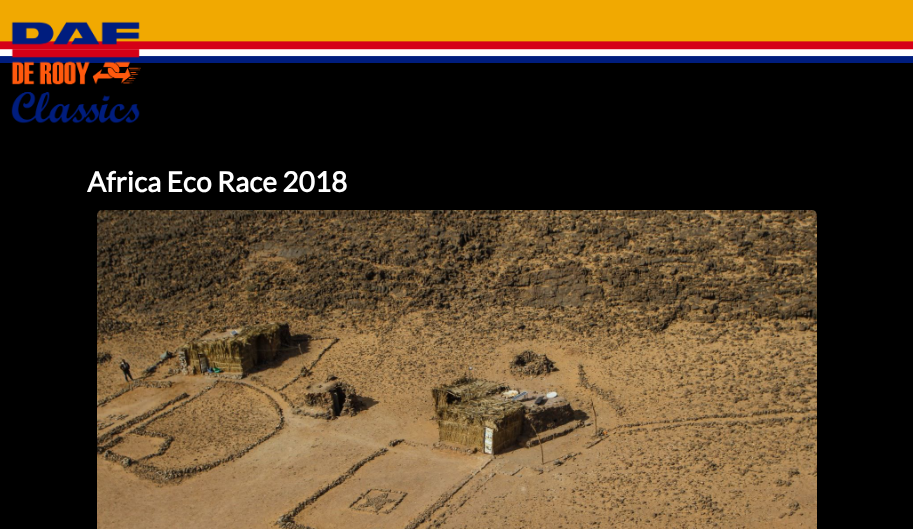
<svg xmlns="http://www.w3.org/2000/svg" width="913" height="529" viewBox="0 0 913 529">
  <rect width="100%" height="100%" fill="#000000"/>
  <image x="0" y="0" width="913" height="63" href="img1.png"/>
  <image x="11" y="21" width="130" height="103" href="img2.png"/>
  <text x="87" y="192" font-family="Lato" font-size="28" font-weight="bold" fill="#ffffff">Africa Eco Race 2018</text>
  <image x="97" y="210" width="720" height="319" href="img3.png"/>
</svg>
